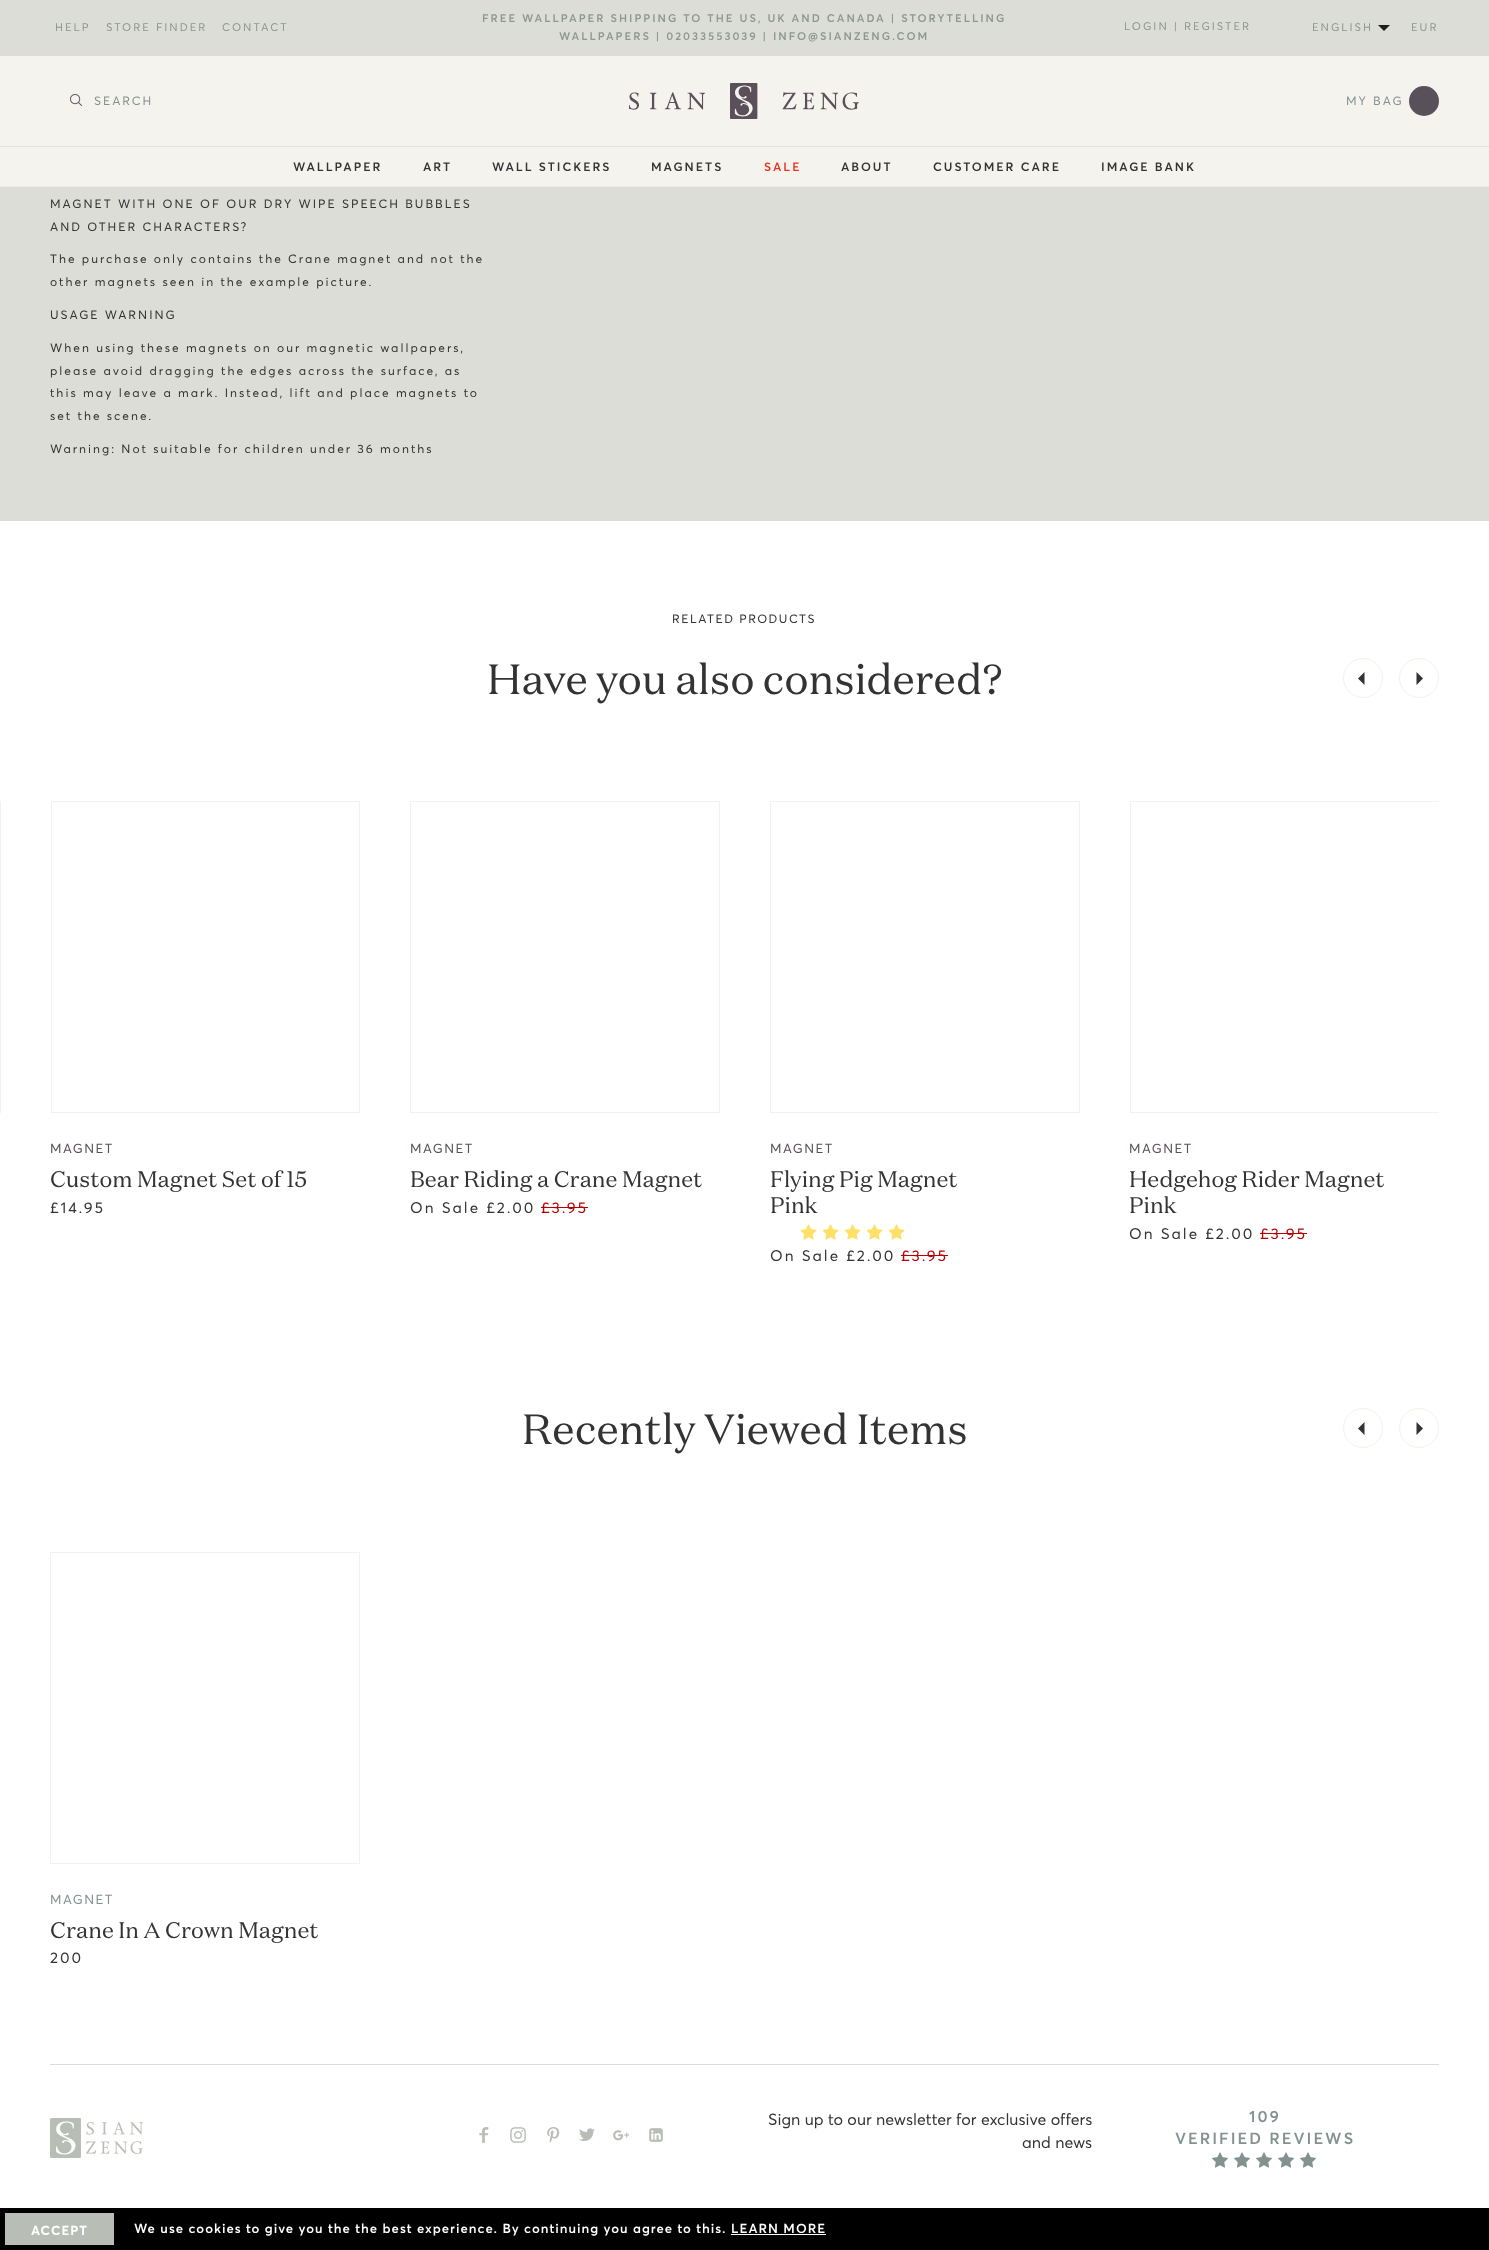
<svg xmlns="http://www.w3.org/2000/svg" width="1489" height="2250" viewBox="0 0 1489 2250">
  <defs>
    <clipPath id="clip1"><rect x="0" y="801" width="1439" height="512"/></clipPath>
  </defs>
  <rect width="100%" height="100%" fill="#ffffff"/>
  <rect x="0" y="56" width="1489" height="130" fill="#f4f3ee"/>
  <rect x="0" y="186" width="1489" height="1" fill="#eaeae5"/>
  <rect x="0" y="0" width="1489" height="56" fill="#dcddd7"/>
  <text x="55" y="31" font-family="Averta" font-size="11" letter-spacing="2" fill="#8e9793">HELP</text>
  <text x="106" y="31" font-family="Averta" font-size="11" letter-spacing="2" fill="#8e9793">STORE FINDER</text>
  <text x="222" y="31" font-family="Averta" font-size="11" letter-spacing="2" fill="#8e9793">CONTACT</text>
  <text x="482" y="22" font-family="Averta" font-size="11" font-weight="600" letter-spacing="2" fill="#8e9793">FREE WALLPAPER SHIPPING TO THE US, UK AND CANADA | STORYTELLING</text>
  <text x="559" y="40" font-family="Averta" font-size="11" font-weight="600" letter-spacing="2" fill="#8e9793">WALLPAPERS | 02033553039 | INFO@SIANZENG.COM</text>
  <text x="1124" y="30" font-family="Averta" font-size="11" letter-spacing="2" fill="#8e9793">LOGIN | REGISTER</text>
  <text x="1312" y="31" font-family="Averta" font-size="11" letter-spacing="2" fill="#8e9793">ENGLISH</text>
  <path d="M1378 25H1390L1384 31Z" fill="#1d1d1d"/>
  <text x="1411" y="31" font-family="Averta" font-size="11" letter-spacing="2" fill="#8e9793">EUR</text>
  <image x="70" y="94" width="12" height="12" href="img1.png"/>
  <text x="94" y="105" font-family="Averta" font-size="12" letter-spacing="2" fill="#839191">SEARCH</text>
  <image x="629" y="83" width="230" height="36" href="img2.png"/>
  <text x="1346" y="105" font-family="Averta" font-size="12" letter-spacing="2" fill="#839191">MY BAG</text>
  <circle cx="1424" cy="101" r="15" fill="#595159"/>
  <rect x="0" y="146" width="1489" height="1" fill="#e1e2dc"/>
  <text x="293" y="171" font-family="Averta" font-size="12" font-weight="600" letter-spacing="2" fill="#333333">WALLPAPER</text>
  <text x="423" y="171" font-family="Averta" font-size="12" font-weight="600" letter-spacing="2" fill="#333333">ART</text>
  <text x="492" y="171" font-family="Averta" font-size="12" font-weight="600" letter-spacing="2" fill="#333333">WALL STICKERS</text>
  <text x="651" y="171" font-family="Averta" font-size="12" font-weight="600" letter-spacing="2" fill="#333333">MAGNETS</text>
  <text x="764" y="171" font-family="Averta" font-size="12" font-weight="600" letter-spacing="2" fill="#e83323">SALE</text>
  <text x="841" y="171" font-family="Averta" font-size="12" font-weight="600" letter-spacing="2" fill="#333333">ABOUT</text>
  <text x="933" y="171" font-family="Averta" font-size="12" font-weight="600" letter-spacing="2" fill="#333333">CUSTOMER CARE</text>
  <text x="1101" y="171" font-family="Averta" font-size="12" font-weight="600" letter-spacing="2" fill="#333333">IMAGE BANK</text>
  <rect x="0" y="187" width="1489" height="334" fill="#dcddd7"/>
  <text x="50" y="208" font-family="Averta" font-size="12" letter-spacing="2" fill="#333333">MAGNET WITH ONE OF OUR DRY WIPE SPEECH BUBBLES</text>
  <text x="50" y="231" font-family="Averta" font-size="12" letter-spacing="2" fill="#333333">AND OTHER CHARACTERS?</text>
  <text x="50" y="263" font-family="Averta" font-size="12" letter-spacing="2" fill="#333333">The purchase only contains the Crane magnet and not the</text>
  <text x="50" y="286" font-family="Averta" font-size="12" letter-spacing="2" fill="#333333">other magnets seen in the example picture.</text>
  <text x="50" y="319" font-family="Averta" font-size="12" letter-spacing="2" fill="#333333">USAGE WARNING</text>
  <text x="50" y="352" font-family="Averta" font-size="12" letter-spacing="2" fill="#333333">When using these magnets on our magnetic wallpapers,</text>
  <text x="50" y="375" font-family="Averta" font-size="12" letter-spacing="2" fill="#333333">please avoid dragging the edges across the surface, as</text>
  <text x="50" y="397" font-family="Averta" font-size="12" letter-spacing="2" fill="#333333">this may leave a mark. Instead, lift and place magnets to</text>
  <text x="50" y="420" font-family="Averta" font-size="12" letter-spacing="2" fill="#333333">set the scene.</text>
  <text x="50" y="453" font-family="Averta" font-size="12" letter-spacing="2" fill="#333333">Warning: Not suitable for children under 36 months</text>
  <text x="672" y="623" font-family="Averta" font-size="12" letter-spacing="1.5" fill="#333333">RELATED PRODUCTS</text>
  <text x="487" y="694" font-family="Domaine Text" font-size="42" fill="#333333">Have you also considered?</text>
  <circle cx="1363" cy="678" r="19.5" fill="none" stroke="#f0f4eb"/>
  <path d="M1364.5 672V685L1358 678.5Z" fill="#333333"/>
  <circle cx="1419" cy="678" r="19.5" fill="none" stroke="#f0f4eb"/>
  <path d="M1416.5 672V685L1423 678.5Z" fill="#333333"/>
  <rect x="-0.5" y="801.5" width="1" height="311" fill="none" stroke="#f2f2f2"/>
  <rect x="51.5" y="801.5" width="308" height="311" fill="none" stroke="#f2f2f2"/>
  <text x="50" y="1153" font-family="Averta" font-size="13" letter-spacing="1.5" fill="#5b505a">MAGNET</text>
  <text x="50" y="1187" font-family="Domaine Text" font-size="22.4" fill="#333333">Custom Magnet Set of 15</text>
  <text x="50" y="1213" font-family="Averta" font-size="15.25" letter-spacing="2" fill="#333333">£14.95</text>
  <rect x="410.5" y="801.5" width="309" height="311" fill="none" stroke="#f2f2f2"/>
  <text x="410" y="1153" font-family="Averta" font-size="13" letter-spacing="1.5" fill="#5b505a">MAGNET</text>
  <text x="410" y="1187" font-family="Domaine Text" font-size="22.4" fill="#333333">Bear Riding a Crane Magnet</text>
  <text x="410" y="1213" font-family="Averta" font-size="15.25" letter-spacing="2" fill="#333333">On Sale £2.00</text>
  <text x="541" y="1213" font-family="Averta" font-size="15.25" letter-spacing="2" fill="#b50000">£3.95</text>
  <rect x="541" y="1207" width="47" height="1" fill="#b50000"/>
  <rect x="770.5" y="801.5" width="309" height="311" fill="none" stroke="#f2f2f2"/>
  <text x="770" y="1153" font-family="Averta" font-size="13" letter-spacing="1.5" fill="#5b505a">MAGNET</text>
  <text x="770" y="1187" font-family="Domaine Text" font-size="22.4" fill="#333333">Flying Pig Magnet</text>
  <text x="770" y="1213" font-family="Domaine Text" font-size="22.4" fill="#333333">Pink</text>
  <image x="800" y="1224" width="17" height="16" href="img3.png"/>
  <image x="822" y="1224" width="17" height="16" href="img3.png"/>
  <image x="844" y="1224" width="17" height="16" href="img3.png"/>
  <image x="866" y="1224" width="17" height="16" href="img3.png"/>
  <image x="888" y="1224" width="17" height="16" href="img3.png"/>
  <text x="770" y="1261" font-family="Averta" font-size="15.25" letter-spacing="2" fill="#333333">On Sale £2.00</text>
  <text x="901" y="1261" font-family="Averta" font-size="15.25" letter-spacing="2" fill="#b50000">£3.95</text>
  <rect x="901" y="1255" width="47" height="1" fill="#b50000"/>
  <g clip-path="url(#clip1)">
    <rect x="1130.5" y="801.5" width="309" height="311" fill="none" stroke="#f2f2f2"/>
  </g>
  <text x="1129" y="1153" font-family="Averta" font-size="13" letter-spacing="1.5" fill="#5b505a">MAGNET</text>
  <text x="1129" y="1187" font-family="Domaine Text" font-size="22.4" fill="#333333">Hedgehog Rider Magnet</text>
  <text x="1129" y="1213" font-family="Domaine Text" font-size="22.4" fill="#333333">Pink</text>
  <text x="1129" y="1239" font-family="Averta" font-size="15.25" letter-spacing="2" fill="#333333">On Sale £2.00</text>
  <text x="1260" y="1239" font-family="Averta" font-size="15.25" letter-spacing="2" fill="#b50000">£3.95</text>
  <rect x="1260" y="1233" width="47" height="1" fill="#b50000"/>
  <text x="522" y="1444" font-family="Domaine Text" font-size="42" fill="#333333">Recently Viewed Items</text>
  <circle cx="1363" cy="1428" r="19.5" fill="none" stroke="#f0f4eb"/>
  <path d="M1364.5 1422V1435L1358 1428.5Z" fill="#333333"/>
  <circle cx="1419" cy="1428" r="19.5" fill="none" stroke="#f0f4eb"/>
  <path d="M1416.5 1422V1435L1423 1428.5Z" fill="#333333"/>
  <rect x="50.5" y="1552.5" width="309" height="311" fill="none" stroke="#f2f2f2"/>
  <text x="50" y="1904" font-family="Averta" font-size="13" letter-spacing="1.5" fill="#839191">MAGNET</text>
  <text x="50" y="1938" font-family="Domaine Text" font-size="22.4" fill="#333333">Crane In A Crown Magnet</text>
  <text x="50" y="1963" font-family="Averta" font-size="15.25" letter-spacing="2" fill="#333333">200</text>
  <rect x="50" y="2064" width="1389" height="1" fill="#dcddd7"/>
  <image x="50" y="2118" width="93" height="40" href="img4.png"/>
  <image x="479" y="2127" width="10" height="16" href="img5.png"/>
  <image x="510" y="2127" width="16" height="16" href="img6.png"/>
  <image x="547" y="2127" width="13" height="16" href="img7.png"/>
  <image x="579" y="2128" width="16" height="13" href="img8.png"/>
  <image x="613" y="2130" width="16" height="11" href="img9.png"/>
  <image x="649" y="2128" width="14" height="14" href="img10.png"/>
  <text x="768" y="2125" font-family="Averta" font-size="16" fill="#333333">Sign up to our newsletter for exclusive offers</text>
  <text x="1022" y="2148" font-family="Averta" font-size="16" fill="#333333">and news</text>
  <text x="1249" y="2122" font-family="Averta" font-size="16" font-weight="600" letter-spacing="2" fill="#839191">109</text>
  <text x="1175" y="2144" font-family="Averta" font-size="16" font-weight="600" letter-spacing="2" fill="#839191">VERIFIED REVIEWS</text>
  <image x="1212" y="2152" width="16" height="16" href="img11.png"/>
  <image x="1234" y="2152" width="16" height="16" href="img11.png"/>
  <image x="1256" y="2152" width="16" height="16" href="img11.png"/>
  <image x="1278" y="2152" width="16" height="16" href="img11.png"/>
  <image x="1300" y="2152" width="16" height="16" href="img11.png"/>
  <rect x="0" y="2208" width="1489" height="42" fill="#000000"/>
  <rect x="5" y="2213" width="109" height="32" fill="#b8beb6"/>
  <text x="31" y="2235" font-family="Averta" font-size="13" font-weight="bold" letter-spacing="1" fill="#ffffff">ACCEPT</text>
  <text x="134" y="2233" font-family="Averta" font-size="13" font-weight="600" letter-spacing="1" fill="#ffffff">We use cookies to give you the the best experience. By continuing you agree to this. LEARN MORE</text>
  <rect x="731" y="2234" width="95" height="1" fill="#ffffff"/>
</svg>
